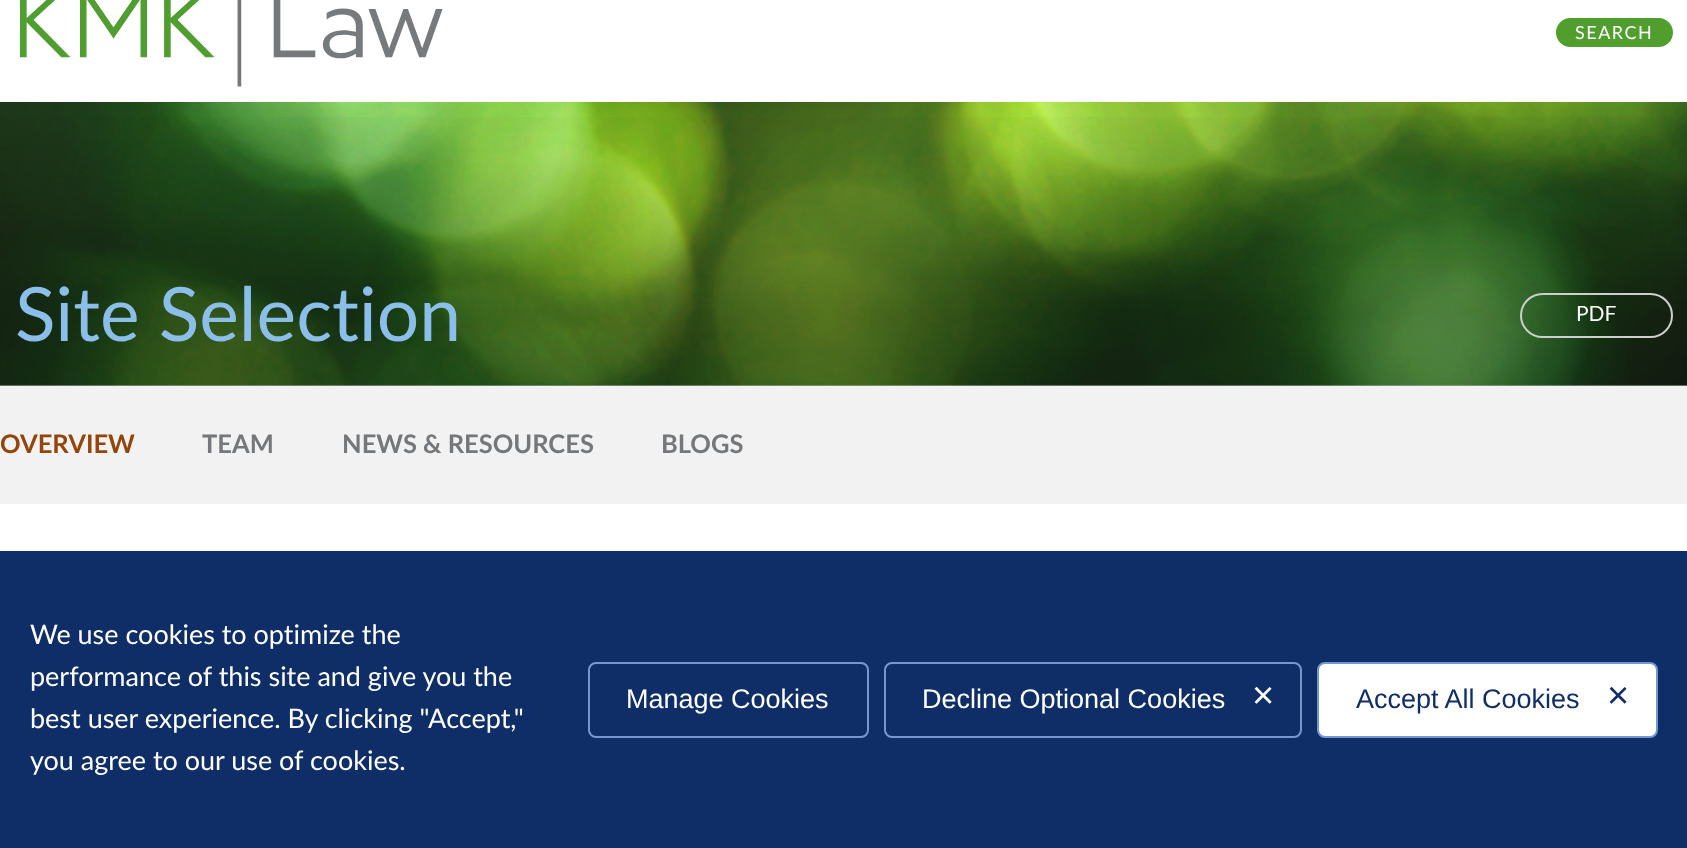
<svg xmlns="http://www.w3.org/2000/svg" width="1687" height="848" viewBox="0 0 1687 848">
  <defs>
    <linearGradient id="g1" gradientUnits="userSpaceOnUse" x1="844" y1="102" x2="844" y2="386"><stop offset="0" stop-color="#000000" stop-opacity="0"/><stop offset="0.75" stop-color="#000000" stop-opacity="0.31"/></linearGradient>
  </defs>
  <rect width="100%" height="100%" fill="#ffffff"/>
  <image x="20" y="0" width="423" height="87" href="img1.png"/>
  <rect x="1556" y="18" width="117" height="29" rx="14.5" fill="#509e2e"/>
  <text x="1575" y="39" font-family="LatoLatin" font-size="18" letter-spacing="1.5" fill="#ffffff">SEARCH</text>
  <image x="0" y="102" width="1687" height="284" href="img2.png"/>
  <rect x="0" y="117" width="1687" height="269" fill="url(#g1)"/>
  <text x="15" y="341" font-family="LatoLatin" font-size="75" fill="#8bbee8">Site Selection</text>
  <rect x="1521" y="294" width="151" height="43" rx="21.5" fill="none" stroke="#cecece" stroke-width="2"/>
  <text x="1576" y="321" font-family="LatoLatin" font-size="21" fill="#ffffff">PDF</text>
  <rect x="0" y="386" width="1687" height="118" fill="#f2f2f2"/>
  <text x="0" y="453" font-family="LatoLatin" font-size="25.5" font-weight="bold" fill="#94450b">OVERVIEW</text>
  <text x="202" y="453" font-family="LatoLatin" font-size="25.5" font-weight="bold" fill="#75787b">TEAM</text>
  <text x="342" y="453" font-family="LatoLatin" font-size="25.5" font-weight="bold" fill="#75787b">NEWS &amp; RESOURCES</text>
  <text x="661" y="453" font-family="LatoLatin" font-size="25.5" font-weight="bold" fill="#75787b">BLOGS</text>
  <rect x="0" y="551" width="1687" height="297" fill="#0f2e67"/>
  <text x="30" y="644" font-family="LatoLatin" font-size="27" fill="#ffffff">We use cookies to optimize the</text>
  <text x="30" y="686" font-family="LatoLatin" font-size="27" fill="#ffffff">performance of this site and give you the</text>
  <text x="30" y="728" font-family="LatoLatin" font-size="27" fill="#ffffff">best user experience. By clicking "Accept,"</text>
  <text x="30" y="770" font-family="LatoLatin" font-size="27" fill="#ffffff">you agree to our use of cookies.</text>
  <rect x="589" y="663" width="279" height="74" rx="7" fill="none" stroke="#7697cd" stroke-width="2"/>
  <text x="626" y="708" font-family="Liberation Sans" font-size="27" fill="#ffffff">Manage Cookies</text>
  <rect x="885" y="663" width="416" height="74" rx="7" fill="none" stroke="#7697cd" stroke-width="2"/>
  <text x="922" y="708" font-family="Liberation Sans" font-size="27" fill="#ffffff">Decline Optional Cookies</text>
  <text x="1252" y="708" font-family="Liberation Sans" font-size="38" fill="#ffffff">×</text>
  <rect x="1318" y="663" width="339" height="74" rx="7" fill="#ffffff" stroke="#7697cd" stroke-width="2"/>
  <text x="1356" y="708" font-family="Liberation Sans" font-size="27" fill="#0f2e67">Accept All Cookies</text>
  <text x="1607" y="708" font-family="Liberation Sans" font-size="38" fill="#0f2e67">×</text>
</svg>
